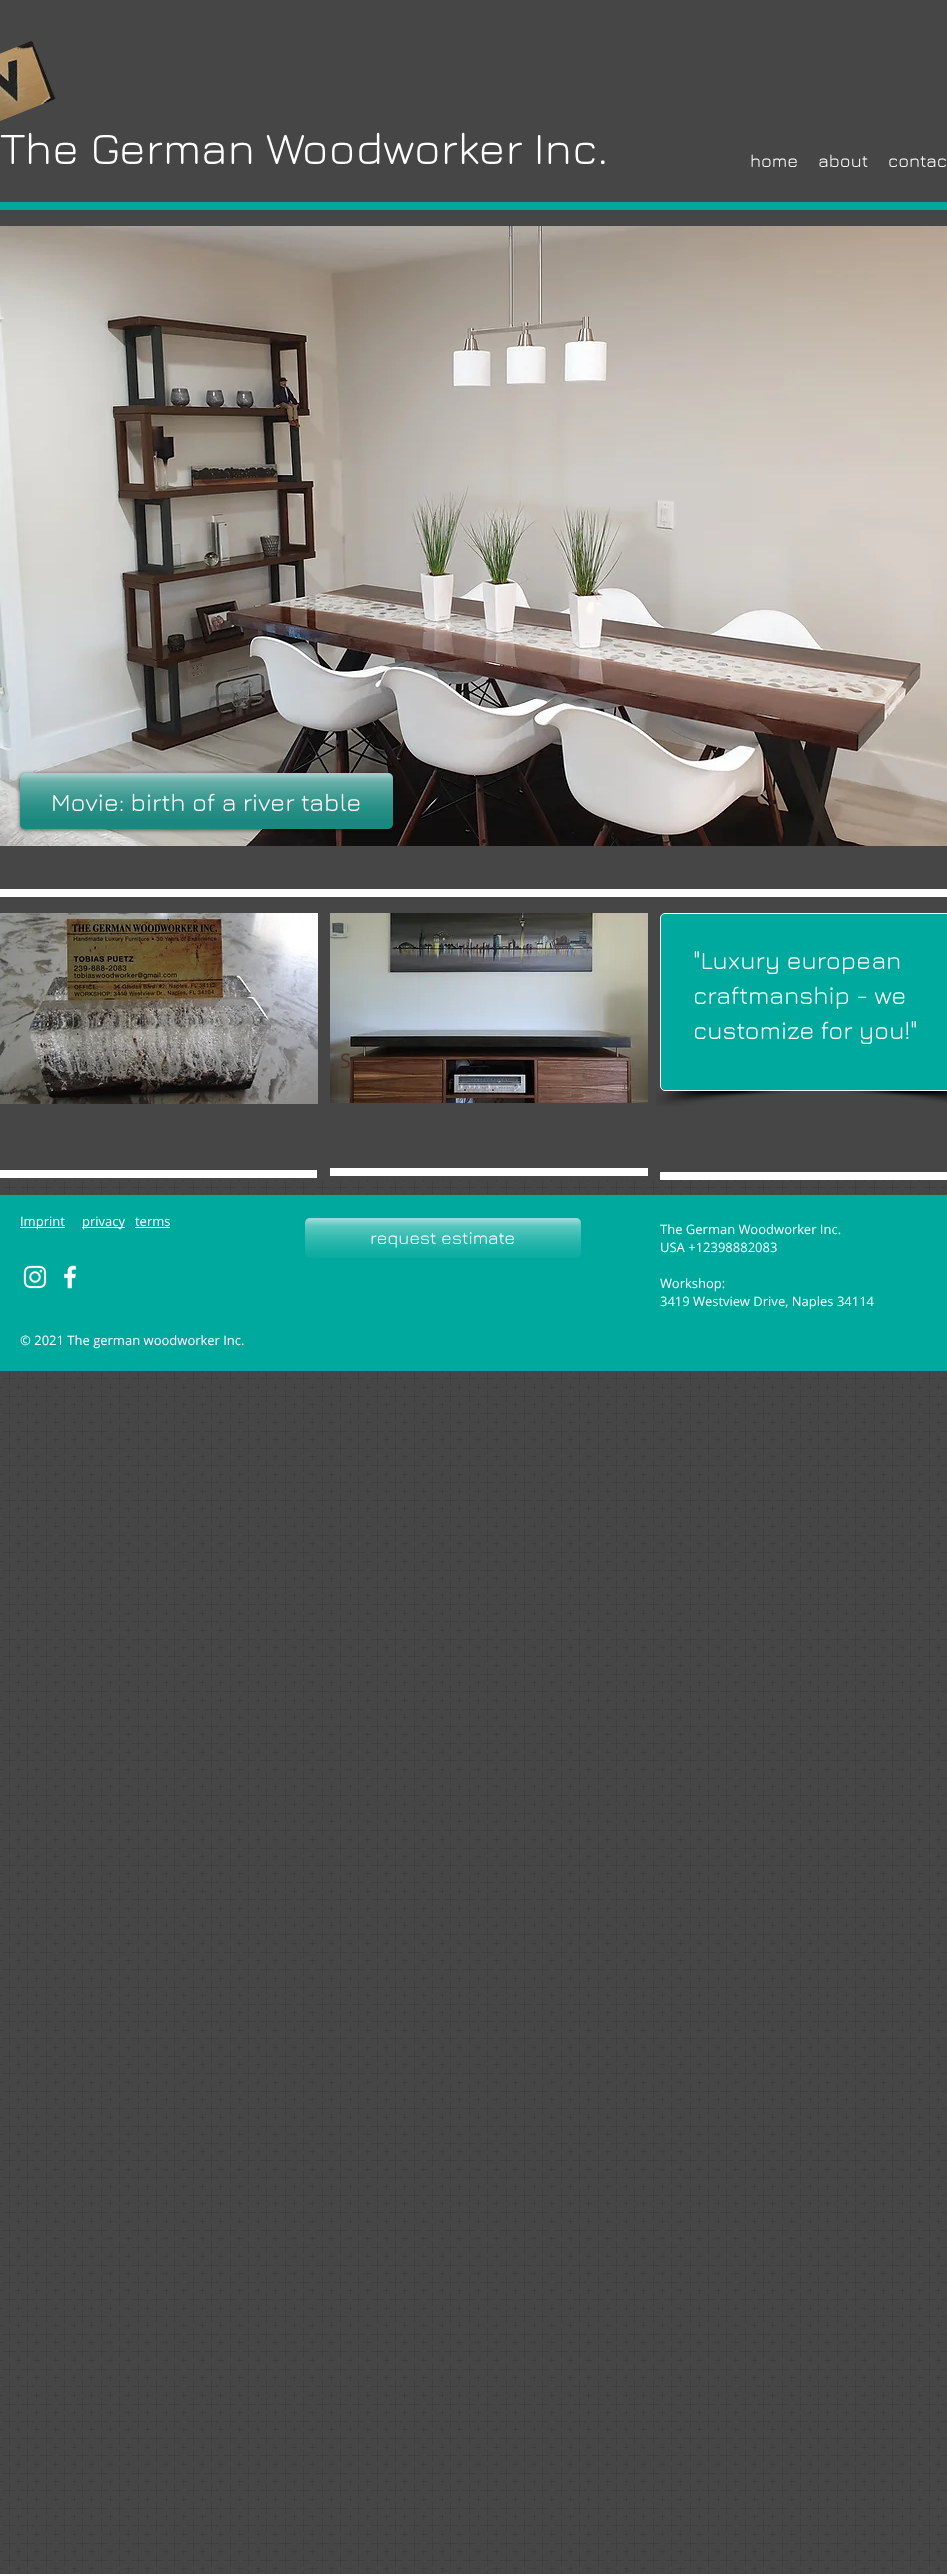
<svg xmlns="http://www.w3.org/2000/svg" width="947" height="2574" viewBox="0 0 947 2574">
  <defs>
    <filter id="blur1" x="-50%" y="-200%" width="200%" height="500%"><feGaussianBlur stdDeviation="2"/></filter>
  </defs>
  <rect width="100%" height="100%" fill="#474646"/>
  <image x="0" y="41" width="56" height="80" href="img1.png"/>
  <text x="0" y="164" font-family="Jura" font-size="45" fill="#ffffff">The German Woodworker Inc.</text>
  <text x="750" y="167" font-family="Jura" font-size="18" fill="#ffffff">home</text>
  <text x="818" y="167" font-family="Jura" font-size="18" fill="#ffffff">about</text>
  <text x="888" y="167" font-family="Jura" font-size="18" fill="#ffffff">contac</text>
  <rect x="0" y="202" width="947" height="8" fill="#00a99d"/>
  <image x="0" y="226" width="947" height="620" href="img2.png"/>
  <rect x="20" y="774" width="373" height="56" rx="5" fill="#000000" fill-opacity="0.6" filter="url(#blur1)"/>
  <rect x="20" y="773" width="373" height="56" rx="5" fill="#1a887e"/>
  <image x="20" y="773" width="373" height="46" href="img3.png"/>
  <text x="51" y="811" font-family="Jura" font-size="25" fill="#ffffff">Movie: birth of a river table</text>
  <rect x="0" y="889" width="947" height="8" fill="#ffffff"/>
  <image x="0" y="913" width="318" height="191" href="img4.png"/>
  <rect x="660.5" y="913.5" width="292" height="177" rx="4.5" fill="#00a99d" stroke="#ffffff"/>
  <text x="693" y="969" font-family="Jura" font-size="25" fill="#ffffff">"Luxury european</text>
  <text x="693" y="1004" font-family="Jura" font-size="25" fill="#ffffff">craftmanship - we</text>
  <text x="693" y="1039" font-family="Jura" font-size="25" fill="#ffffff">customize for you!"</text>
  <image x="656" y="1091" width="134" height="15" href="img5.png"/>
  <image x="849" y="1091" width="98" height="12" href="img6.png"/>
  <image x="330" y="913" width="318" height="190" href="img7.png"/>
  <text x="340" y="1068" font-family="Open Sans" font-size="20" fill="#4b3428">S</text>
  <text x="448" y="1089" font-family="Open Sans" font-size="13" fill="#493122">f</text>
  <text x="621" y="1090" font-family="Liberation Sans" font-size="12" fill="#6d5d53">1/</text>
  <rect x="0" y="1170" width="317" height="8" fill="#ffffff"/>
  <rect x="330" y="1168" width="318" height="8" fill="#ffffff"/>
  <rect x="660" y="1172" width="287" height="8" fill="#ffffff"/>
  <image x="0" y="1180" width="947" height="1394" href="img11.png"/>
  <rect x="0" y="1195" width="947" height="176" fill="#00a99d"/>
  <rect x="20" y="1227" width="45" height="1" fill="#ffffff"/>
  <text x="20" y="1226" font-family="Open Sans" font-size="13" fill="#ffffff">Imprint</text>
  <rect x="82" y="1227" width="43" height="1" fill="#ffffff"/>
  <text x="82" y="1226" font-family="Open Sans" font-size="13" fill="#ffffff">privacy</text>
  <text x="135" y="1226" font-family="Open Sans" font-size="13" fill="#ffffff">terms</text>
  <rect x="135" y="1227" width="35" height="1" fill="#ffffff"/>
  <image x="305" y="1218" width="276" height="40" href="img8.png"/>
  <text x="370" y="1244" font-family="Jura" font-size="18" fill="#ffffff">request estimate</text>
  <text x="660" y="1234" font-family="Open Sans" font-size="13" fill="#ffffff">The German Woodworker Inc.</text>
  <text x="660" y="1252" font-family="Open Sans" font-size="13" fill="#ffffff">USA +12398882083</text>
  <text x="660" y="1288" font-family="Open Sans" font-size="13" fill="#ffffff">Workshop:</text>
  <text x="660" y="1306" font-family="Open Sans" font-size="13" fill="#ffffff">3419 Westview Drive, Naples 34114</text>
  <image x="23" y="1265" width="24" height="24" href="img9.png"/>
  <image x="64" y="1265" width="13" height="24" href="img10.png"/>
  <text x="20" y="1345" font-family="Open Sans" font-size="13" fill="#ffffff">© 2021 The german woodworker Inc.</text>
</svg>
